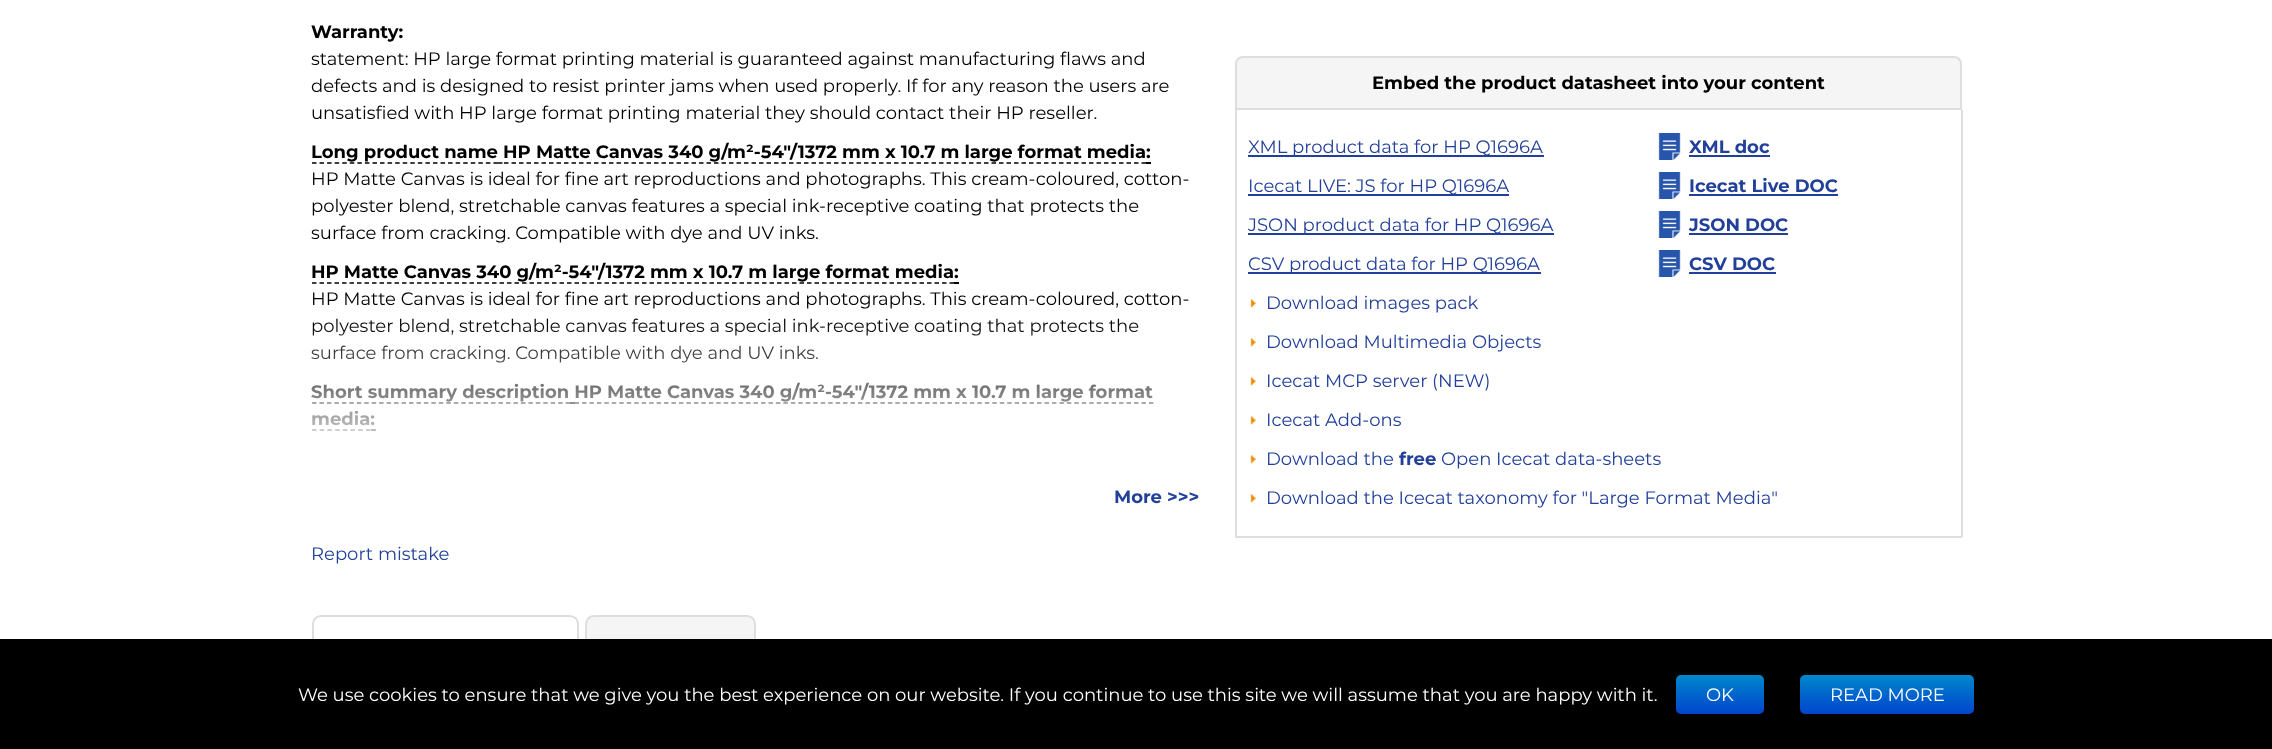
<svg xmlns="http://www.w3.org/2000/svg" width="2272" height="749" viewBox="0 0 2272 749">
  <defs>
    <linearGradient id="g1" gradientUnits="userSpaceOnUse" x1="755" y1="318" x2="755" y2="468"><stop offset="0" stop-color="#ffffff" stop-opacity="0"/><stop offset="1" stop-color="#ffffff"/></linearGradient>
    <linearGradient id="g2" gradientUnits="userSpaceOnUse" x1="1720" y1="675" x2="1720" y2="714"><stop offset="0" stop-color="#0088cc"/><stop offset="1" stop-color="#0044cc"/></linearGradient>
    <linearGradient id="g3" gradientUnits="userSpaceOnUse" x1="1887" y1="675" x2="1887" y2="714"><stop offset="0" stop-color="#0088cc"/><stop offset="1" stop-color="#0044cc"/></linearGradient>
  </defs>
  <rect width="100%" height="100%" fill="#ffffff"/>
  <text x="311" y="38" font-family="Montserrat" font-size="18" font-weight="bold" fill="#000000">Warranty:</text>
  <text x="311" y="65" font-family="Montserrat" font-size="18" fill="#000000">statement: HP large format printing material is guaranteed against manufacturing flaws and</text>
  <text x="311" y="92" font-family="Montserrat" font-size="18" fill="#000000">defects and is designed to resist printer jams when used properly. If for any reason the users are</text>
  <text x="311" y="119" font-family="Montserrat" font-size="18" fill="#000000">unsatisfied with HP large format printing material they should contact their HP reseller.</text>
  <text x="311" y="158" font-family="Montserrat" font-size="18" font-weight="bold" fill="#000000">Long product name HP Matte Canvas 340 g/m²-54"/1372 mm x 10.7 m large format media:</text>
  <path d="M312 163H498" fill="none" stroke="#000000" stroke-width="1.5" stroke-dasharray="4.5 3.06"/>
  <path d="M498 163H502.5" fill="none" stroke="#000000" stroke-width="1.5"/>
  <path d="M504 163H1146" fill="none" stroke="#000000" stroke-width="1.5" stroke-dasharray="4.5 3"/>
  <rect x="1146" y="162" width="5" height="2" fill="#000000"/>
  <text x="311" y="185" font-family="Montserrat" font-size="18" fill="#000000">HP Matte Canvas is ideal for fine art reproductions and photographs. This cream-coloured, cotton-</text>
  <text x="311" y="212" font-family="Montserrat" font-size="18" fill="#000000">polyester blend, stretchable canvas features a special ink-receptive coating that protects the</text>
  <text x="311" y="239" font-family="Montserrat" font-size="18" fill="#000000">surface from cracking. Compatible with dye and UV inks.</text>
  <text x="311" y="278" font-family="Montserrat" font-size="18" font-weight="bold" fill="#000000">HP Matte Canvas 340 g/m²-54"/1372 mm x 10.7 m large format media:</text>
  <path d="M312 283H954" fill="none" stroke="#000000" stroke-width="1.5" stroke-dasharray="4.5 3"/>
  <rect x="954" y="282" width="5" height="2" fill="#000000"/>
  <text x="311" y="305" font-family="Montserrat" font-size="18" fill="#000000">HP Matte Canvas is ideal for fine art reproductions and photographs. This cream-coloured, cotton-</text>
  <text x="311" y="332" font-family="Montserrat" font-size="18" fill="#000000">polyester blend, stretchable canvas features a special ink-receptive coating that protects the</text>
  <text x="311" y="359" font-family="Montserrat" font-size="18" fill="#000000">surface from cracking. Compatible with dye and UV inks.</text>
  <text x="311" y="398" font-family="Montserrat" font-size="18" font-weight="bold" fill="#000000">Short summary description HP Matte Canvas 340 g/m²-54"/1372 mm x 10.7 m large format</text>
  <path d="M312 403H570" fill="none" stroke="#000000" stroke-width="1.5" stroke-dasharray="4.5 2.96"/>
  <rect x="570" y="402" width="5" height="2" fill="#000000"/>
  <path d="M574.5 403H1153.5" fill="none" stroke="#000000" stroke-width="1.5" stroke-dasharray="4.5 2.96"/>
  <text x="311" y="425" font-family="Montserrat" font-size="18" font-weight="bold" fill="#000000">media:</text>
  <path d="M312 430H370.5" fill="none" stroke="#000000" stroke-width="1.5" stroke-dasharray="4.5 3.21"/>
  <rect x="371" y="429" width="5" height="2" fill="#000000"/>
  <rect x="312" y="321" width="842" height="110" fill="url(#g1)"/>
  <text x="1114" y="503" font-family="Montserrat" font-size="18" font-weight="bold" fill="#22409a">More &gt;&gt;&gt;</text>
  <text x="311" y="560" font-family="Montserrat" font-size="18" fill="#22409a">Report mistake</text>
  <path d="M1243 57H1954C1958 57 1961 60 1961 64V109H1236V64C1236 60 1239 57 1243 57Z" fill="#f5f5f5" stroke="#dedede" stroke-width="2"/>
  <text x="1372" y="89" font-family="Montserrat" font-size="18" font-weight="bold" fill="#000000">Embed the product datasheet into your content</text>
  <rect x="1961" y="110" width="2" height="427" fill="#dedede"/>
  <rect x="1235" y="536" width="727" height="2" fill="#dedede"/>
  <rect x="1235" y="110" width="2" height="427" fill="#dedede"/>
  <rect x="1248" y="155" width="296" height="2" fill="#22409a"/>
  <text x="1248" y="153" font-family="Montserrat" font-size="18" fill="#22409a">XML product data for HP Q1696A</text>
  <image x="1658" y="133" width="23" height="27" href="img1.png"/>
  <text x="1689" y="153" font-family="Montserrat" font-size="18" font-weight="bold" fill="#22409a">XML doc</text>
  <rect x="1689" y="155" width="81" height="2" fill="#22409a"/>
  <rect x="1248" y="194" width="261" height="2" fill="#22409a"/>
  <text x="1248" y="192" font-family="Montserrat" font-size="18" fill="#22409a">Icecat LIVE: JS for HP Q1696A</text>
  <image x="1658" y="172" width="23" height="27" href="img1.png"/>
  <text x="1689" y="192" font-family="Montserrat" font-size="18" font-weight="bold" fill="#22409a">Icecat Live DOC</text>
  <rect x="1689" y="194" width="149" height="2" fill="#22409a"/>
  <rect x="1248" y="233" width="306" height="2" fill="#22409a"/>
  <text x="1248" y="231" font-family="Montserrat" font-size="18" fill="#22409a">JSON product data for HP Q1696A</text>
  <image x="1658" y="211" width="23" height="27" href="img1.png"/>
  <text x="1689" y="231" font-family="Montserrat" font-size="18" font-weight="bold" fill="#22409a">JSON DOC</text>
  <rect x="1689" y="233" width="99" height="2" fill="#22409a"/>
  <rect x="1248" y="272" width="293" height="2" fill="#22409a"/>
  <text x="1248" y="270" font-family="Montserrat" font-size="18" fill="#22409a">CSV product data for HP Q1696A</text>
  <image x="1658" y="250" width="23" height="27" href="img1.png"/>
  <text x="1689" y="270" font-family="Montserrat" font-size="18" font-weight="bold" fill="#22409a">CSV DOC</text>
  <rect x="1689" y="272" width="87" height="2" fill="#22409a"/>
  <image x="1250" y="299" width="6" height="9" href="img2.png"/>
  <text x="1266" y="309" font-family="Montserrat" font-size="18" fill="#22409a">Download images pack</text>
  <image x="1250" y="338" width="6" height="9" href="img2.png"/>
  <text x="1266" y="348" font-family="Montserrat" font-size="18" fill="#22409a">Download Multimedia Objects</text>
  <image x="1250" y="377" width="6" height="9" href="img2.png"/>
  <text x="1266" y="387" font-family="Montserrat" font-size="18" fill="#22409a">Icecat MCP server (NEW)</text>
  <image x="1250" y="416" width="6" height="9" href="img2.png"/>
  <text x="1266" y="426" font-family="Montserrat" font-size="18" fill="#22409a">Icecat Add-ons</text>
  <image x="1250" y="455" width="6" height="9" href="img2.png"/>
  <text x="1266" y="465" font-family="Montserrat" font-size="18" fill="#22409a">Download the</text>
  <text x="1399" y="465" font-family="Montserrat" font-size="18" font-weight="bold" fill="#22409a">free</text>
  <text x="1441" y="465" font-family="Montserrat" font-size="18" fill="#22409a">Open Icecat data-sheets</text>
  <image x="1250" y="494" width="6" height="9" href="img2.png"/>
  <text x="1266" y="504" font-family="Montserrat" font-size="18" fill="#22409a">Download the Icecat taxonomy for "Large Format Media"</text>
  <path d="M321 616H570C574.5 616 578 619.5 578 624V659H313V624C313 619.5 316.5 616 321 616Z" fill="none" stroke="#dedede" stroke-width="2"/>
  <path d="M594 616H747C751.5 616 755 619.5 755 624V659H586V624C586 619.5 589.5 616 594 616Z" fill="#f5f5f5" stroke="#dedede" stroke-width="2"/>
  <rect x="0" y="639" width="2272" height="110" fill="#000000"/>
  <text x="298" y="701" font-family="Montserrat" font-size="18" fill="#ffffff">We use cookies to ensure that we give you the best experience on our website. If you continue to use this site we will assume that you are happy with it.</text>
  <rect x="1676" y="675" width="88" height="39" rx="5" fill="url(#g2)"/>
  <text x="1706" y="701" font-family="Montserrat" font-size="18" fill="#ffffff">OK</text>
  <rect x="1800" y="675" width="174" height="39" rx="5" fill="url(#g3)"/>
  <text x="1830" y="701" font-family="Montserrat" font-size="18" fill="#ffffff">READ MORE</text>
</svg>
